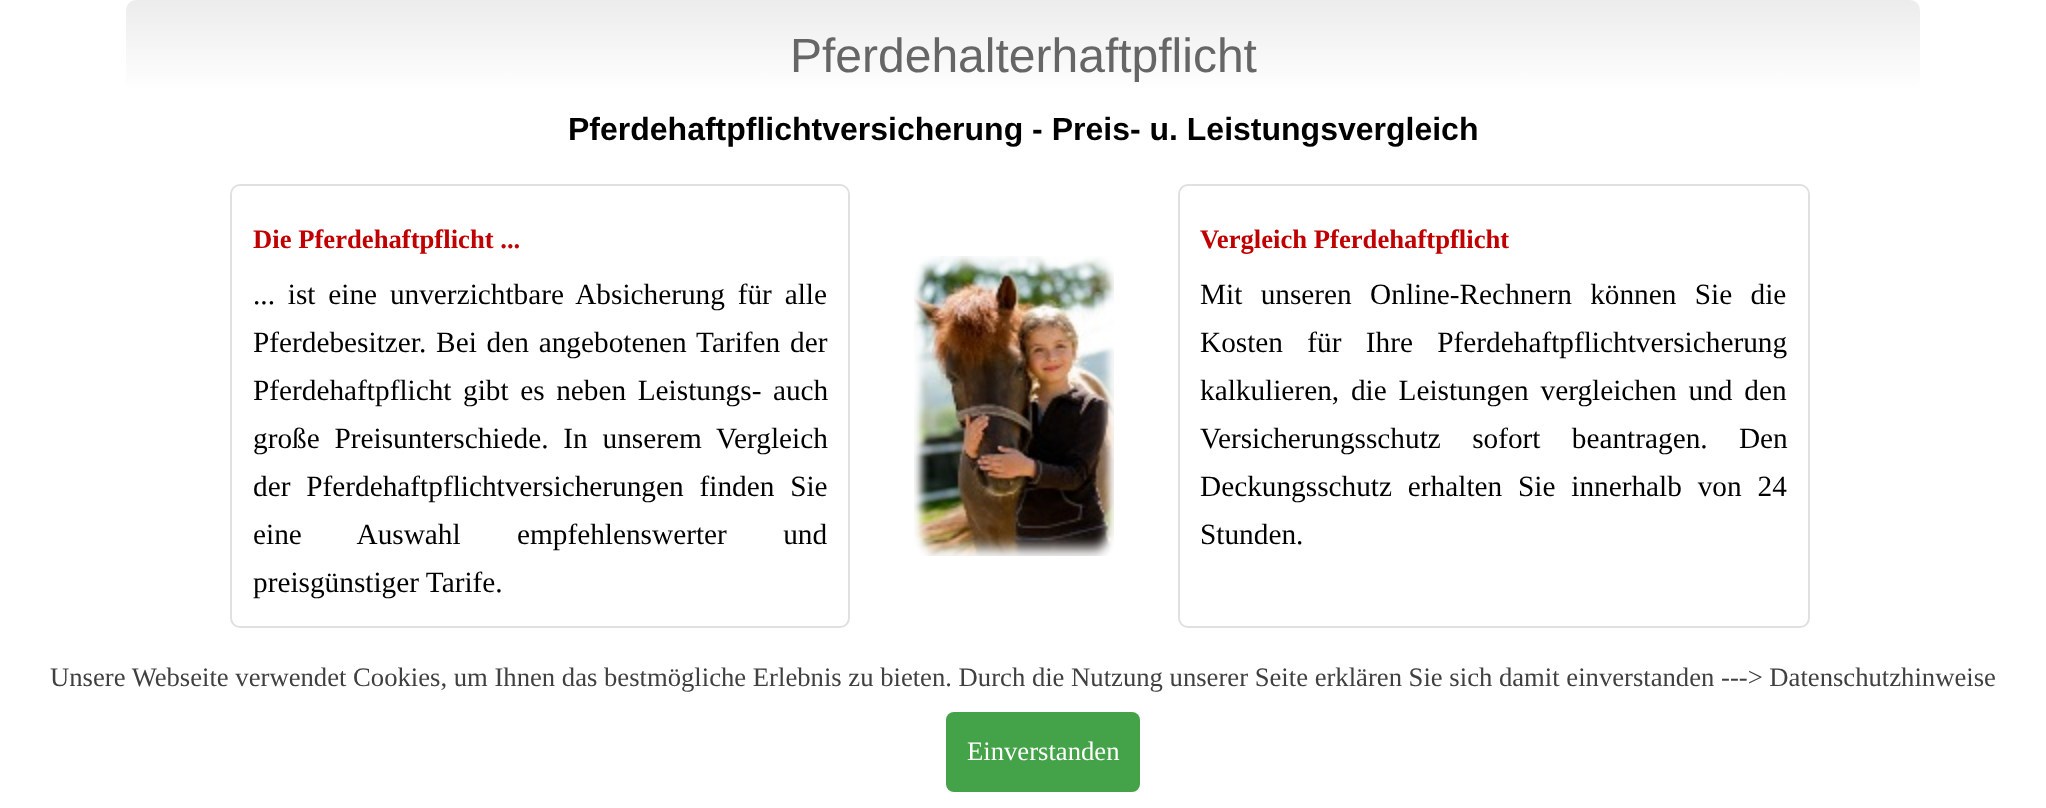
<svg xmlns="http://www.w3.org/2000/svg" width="2046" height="808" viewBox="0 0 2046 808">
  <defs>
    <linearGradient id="g1" gradientUnits="userSpaceOnUse" x1="1023" y1="0" x2="1023" y2="92"><stop offset="0" stop-color="#ececec"/><stop offset="1" stop-color="#ffffff"/></linearGradient>
  </defs>
  <rect width="100%" height="100%" fill="#ffffff"/>
  <rect x="126" y="0" width="1794" height="92" rx="10" fill="url(#g1)"/>
  <text x="790" y="72" font-family="Liberation Sans" font-size="48" fill="#666666">Pferdehalterhaftpflicht</text>
  <text x="568" y="140" font-family="Liberation Sans" font-size="32" font-weight="bold" fill="#000000">Pferdehaftpflichtversicherung - Preis- u. Leistungsvergleich</text>
  <rect x="231" y="185" width="618" height="442" rx="9" fill="none" stroke="#e0e0e0" stroke-width="2"/>
  <text x="253" y="248" font-family="Liberation Serif" font-size="26.67" font-weight="bold" fill="#c00000">Die Pferdehaftpflicht ...</text>
  <text x="253" y="304" word-spacing="5.5" font-family="Liberation Serif" font-size="29.3" fill="#000000">... ist eine unverzichtbare Absicherung für alle</text>
  <text x="253" y="352" word-spacing="2.5" font-family="Liberation Serif" font-size="29.3" fill="#000000">Pferdebesitzer. Bei den angebotenen Tarifen der</text>
  <text x="253" y="400" word-spacing="4.25" font-family="Liberation Serif" font-size="29.3" fill="#000000">Pferdehaftpflicht gibt es neben Leistungs- auch</text>
  <text x="253" y="448" word-spacing="7.5" font-family="Liberation Serif" font-size="29.3" fill="#000000">große Preisunterschiede. In unserem Vergleich</text>
  <text x="253" y="496" word-spacing="8.5" font-family="Liberation Serif" font-size="29.3" fill="#000000">der Pferdehaftpflichtversicherungen finden Sie</text>
  <text x="253" y="544" word-spacing="49" font-family="Liberation Serif" font-size="29.3" fill="#000000">eine Auswahl empfehlenswerter und</text>
  <text x="253" y="592" font-family="Liberation Serif" font-size="29.3" fill="#000000">preisgünstiger Tarife.</text>
  <image x="914" y="256" width="200" height="300" href="img1.png"/>
  <rect x="1179" y="185" width="630" height="442" rx="9" fill="none" stroke="#e0e0e0" stroke-width="2"/>
  <text x="1200" y="248" font-family="Liberation Serif" font-size="26.67" font-weight="bold" fill="#c00000">Vergleich Pferdehaftpflicht</text>
  <text x="1200" y="304" word-spacing="11" font-family="Liberation Serif" font-size="29.3" fill="#000000">Mit unseren Online-Rechnern können Sie die</text>
  <text x="1200" y="352" word-spacing="17" font-family="Liberation Serif" font-size="29.3" fill="#000000">Kosten für Ihre Pferdehaftpflichtversicherung</text>
  <text x="1200" y="400" word-spacing="4.5" font-family="Liberation Serif" font-size="29.3" fill="#000000">kalkulieren, die Leistungen vergleichen und den</text>
  <text x="1200" y="448" word-spacing="24" font-family="Liberation Serif" font-size="29.3" fill="#000000">Versicherungsschutz sofort beantragen. Den</text>
  <text x="1200" y="496" word-spacing="8.5" font-family="Liberation Serif" font-size="29.3" fill="#000000">Deckungsschutz erhalten Sie innerhalb von 24</text>
  <text x="1200" y="544" font-family="Liberation Serif" font-size="29.3" fill="#000000">Stunden.</text>
  <text x="50" y="686" font-family="Liberation Serif" font-size="26.67" fill="#404040">Unsere Webseite verwendet Cookies, um Ihnen das bestmögliche Erlebnis zu bieten. Durch die Nutzung unserer Seite erklären Sie sich damit einverstanden ---&gt; Datenschutzhinweise</text>
  <rect x="946" y="712" width="194" height="80" rx="8" fill="#44a248"/>
  <text x="967" y="760" font-family="Liberation Serif" font-size="26.67" fill="#ffffff">Einverstanden</text>
</svg>
